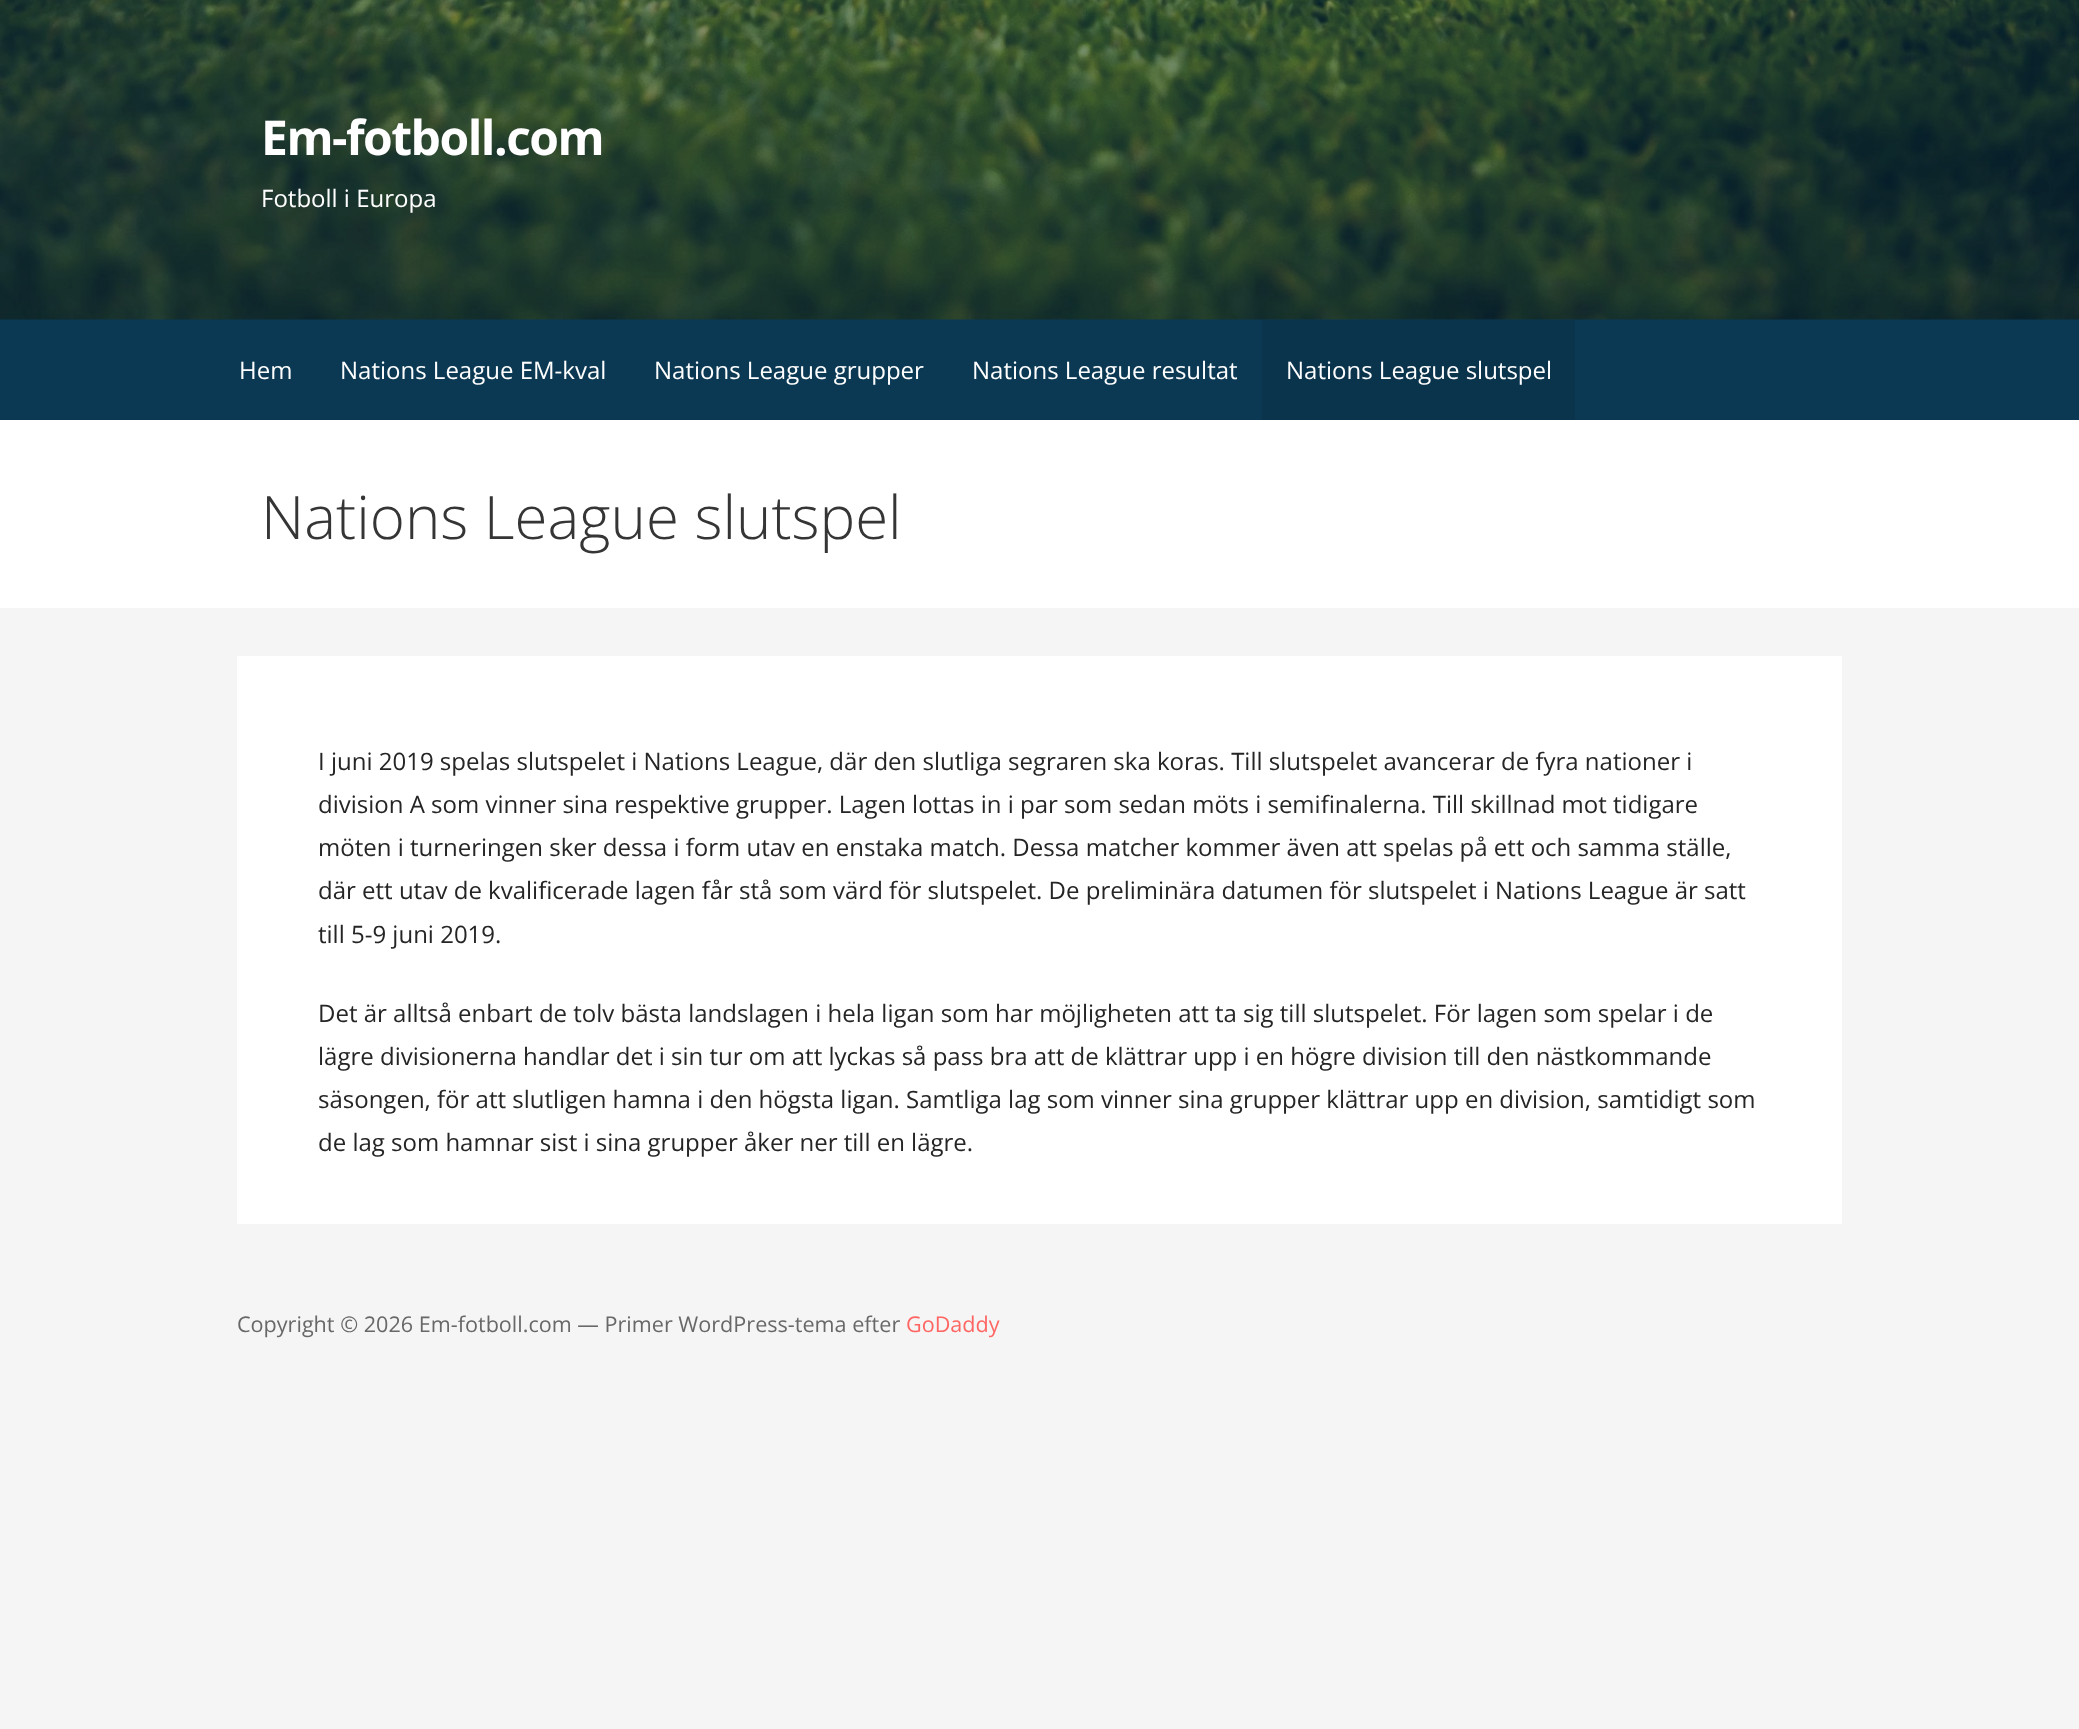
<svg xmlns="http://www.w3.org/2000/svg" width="2079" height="1729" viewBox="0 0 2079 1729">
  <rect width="100%" height="100%" fill="#f5f5f5"/>
  <rect x="0" y="319" width="2079" height="101" fill="#0b3954"/>
  <image x="0" y="0" width="2079" height="320" href="img1.png"/>
  <text x="261" y="155" font-family="Open Sans" font-size="48" font-weight="bold" letter-spacing="-1.5" fill="#ffffff">Em-fotboll.com</text>
  <text x="261" y="207" font-family="Open Sans" font-size="24" fill="#ffffff">Fotboll i Europa</text>
  <text x="239" y="379" font-family="Open Sans" font-size="24" fill="#ffffff">Hem</text>
  <text x="340" y="379" font-family="Open Sans" font-size="24" fill="#ffffff">Nations League EM-kval</text>
  <text x="654" y="379" font-family="Open Sans" font-size="24" fill="#ffffff">Nations League grupper</text>
  <text x="972" y="379" font-family="Open Sans" font-size="24" fill="#ffffff">Nations League resultat</text>
  <rect x="1262" y="320" width="313" height="100" fill="#0a334c"/>
  <text x="1286" y="379" font-family="Open Sans" font-size="24" fill="#ffffff">Nations League slutspel</text>
  <rect x="0" y="420" width="2079" height="188" fill="#ffffff"/>
  <text x="261" y="539" font-family="Open Sans" font-size="60" font-weight="300" fill="#353535">Nations League slutspel</text>
  <rect x="237" y="656" width="1605" height="568" fill="#ffffff"/>
  <text x="318" y="770" font-family="Open Sans" font-size="24" fill="#252525">I juni 2019 spelas slutspelet i Nations League, där den slutliga segraren ska koras. Till slutspelet avancerar de fyra nationer i</text>
  <text x="318" y="813" font-family="Open Sans" font-size="24" fill="#252525">division A som vinner sina respektive grupper. Lagen lottas in i par som sedan möts i semifinalerna. Till skillnad mot tidigare</text>
  <text x="318" y="856" font-family="Open Sans" font-size="24" fill="#252525">möten i turneringen sker dessa i form utav en enstaka match. Dessa matcher kommer även att spelas på ett och samma ställe,</text>
  <text x="318" y="899" font-family="Open Sans" font-size="24" fill="#252525">där ett utav de kvalificerade lagen får stå som värd för slutspelet. De preliminära datumen för slutspelet i Nations League är satt</text>
  <text x="318" y="943" font-family="Open Sans" font-size="24" fill="#252525">till 5-9 juni 2019.</text>
  <text x="318" y="1022" font-family="Open Sans" font-size="24" fill="#252525">Det är alltså enbart de tolv bästa landslagen i hela ligan som har möjligheten att ta sig till slutspelet. För lagen som spelar i de</text>
  <text x="318" y="1065" font-family="Open Sans" font-size="24" fill="#252525">lägre divisionerna handlar det i sin tur om att lyckas så pass bra att de klättrar upp i en högre division till den nästkommande</text>
  <text x="318" y="1108" font-family="Open Sans" font-size="24" fill="#252525">säsongen, för att slutligen hamna i den högsta ligan. Samtliga lag som vinner sina grupper klättrar upp en division, samtidigt som</text>
  <text x="318" y="1151" font-family="Open Sans" font-size="24" fill="#252525">de lag som hamnar sist i sina grupper åker ner till en lägre.</text>
  <text x="237" y="1332" font-family="Open Sans" font-size="21.6" fill="#686868">Copyright © 2026 Em-fotboll.com — Primer WordPress-tema efter</text>
  <text x="906" y="1332" font-family="Open Sans" font-size="21.6" fill="#ff6663">GoDaddy</text>
</svg>
